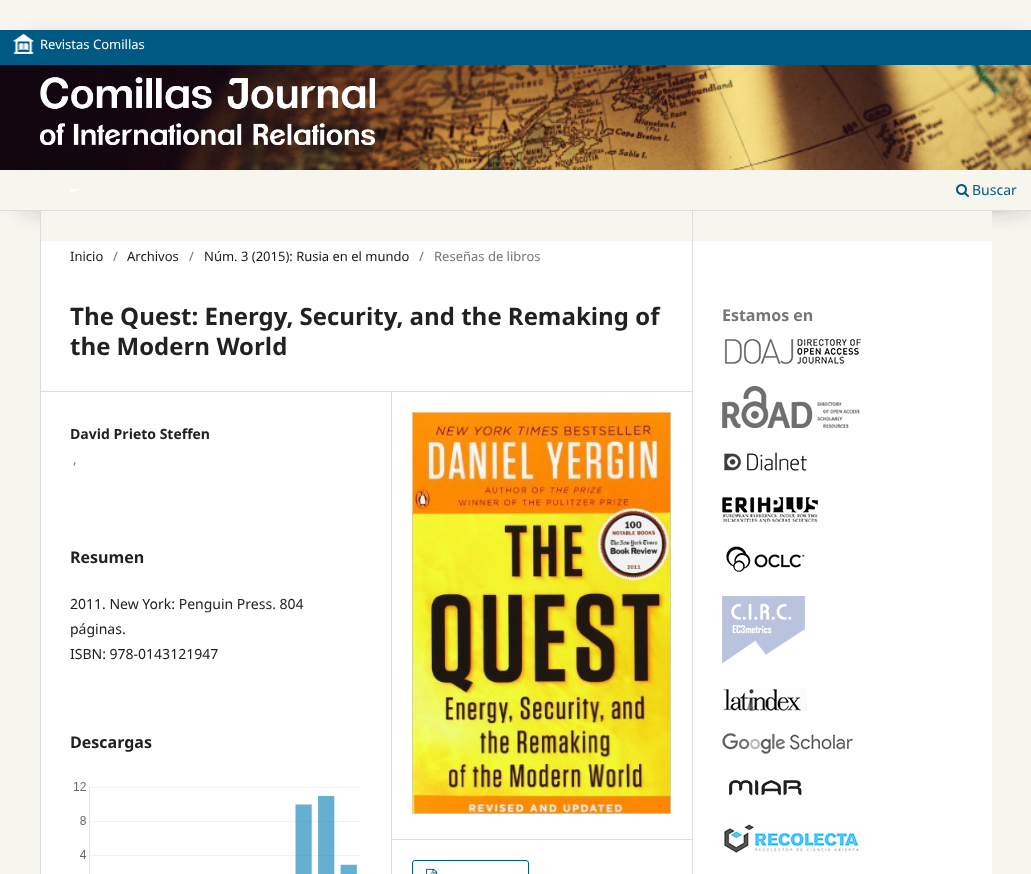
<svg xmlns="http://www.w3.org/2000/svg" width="1031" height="874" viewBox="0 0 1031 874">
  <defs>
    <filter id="blur1" x="-50%" y="-200%" width="200%" height="500%"><feGaussianBlur stdDeviation="15"/></filter>
  </defs>
  <rect width="100%" height="100%" fill="#f6f5ee"/>
  <rect x="29" y="54" width="993" height="143" fill="#333333" filter="url(#blur1)"/>
  <rect x="0" y="30" width="1031" height="35" fill="#005983"/>
  <rect x="0" y="210" width="1031" height="1" fill="#dddddd"/>
  <image x="0" y="65" width="1031" height="105" href="img1.png"/>
  <image x="13" y="34" width="21" height="20" href="img2.png"/>
  <text x="40" y="49" font-family="Noto Sans" font-size="13" fill="#ffffff">Revistas Comillas</text>
  <rect x="0" y="170" width="1031" height="40" fill="#f6f5ee"/>
  <path d="M69 189H77L73 193Z" fill="#ffffff"/>
  <image x="956" y="184" width="13" height="13" href="img3.png"/>
  <text x="972" y="195" font-family="Noto Sans" font-size="14" fill="#005983">Buscar</text>
  <image x="40" y="77" width="335" height="68" href="img4.png"/>
  <rect x="41" y="211" width="951" height="19" fill="#f6f5ee"/>
  <rect x="41" y="241" width="651" height="633" fill="#ffffff"/>
  <rect x="40" y="391" width="652" height="1" fill="#dddddd"/>
  <rect x="40" y="211" width="1" height="663" fill="#dddddd"/>
  <text x="70" y="261" font-family="Noto Sans" font-size="13" fill="#181818">Inicio</text>
  <text x="113" y="261" font-family="Noto Sans" font-size="13" fill="#757575">/</text>
  <text x="127" y="261" font-family="Noto Sans" font-size="13" fill="#181818">Archivos</text>
  <text x="189" y="261" font-family="Noto Sans" font-size="13" fill="#757575">/</text>
  <text x="204" y="261" font-family="Noto Sans" font-size="13" fill="#181818">Núm. 3 (2015): Rusia en el mundo</text>
  <text x="419" y="261" font-family="Noto Sans" font-size="13" fill="#757575">/</text>
  <text x="434" y="261" font-family="Noto Sans" font-size="13" fill="#757575">Reseñas de libros</text>
  <text x="70" y="325" font-family="Noto Sans" font-size="24" font-weight="bold" fill="#212121">The Quest: Energy, Security, and the Remaking of</text>
  <text x="70" y="355" font-family="Noto Sans" font-size="24" font-weight="bold" fill="#212121">the Modern World</text>
  <rect x="391" y="392" width="1" height="482" fill="#dddddd"/>
  <text x="70" y="439" font-family="Noto Sans" font-size="14" font-weight="bold" fill="#212121">David Prieto Steffen</text>
  <text x="73" y="464" font-family="Noto Sans" font-size="13" fill="#757575">,</text>
  <text x="70" y="563" font-family="Noto Sans" font-size="16" font-weight="bold" fill="#212121">Resumen</text>
  <text x="70" y="609" font-family="Noto Sans" font-size="14" fill="#212121">2011. New York: Penguin Press. 804</text>
  <text x="70" y="634" font-family="Noto Sans" font-size="14" fill="#212121">páginas.</text>
  <text x="70" y="659" font-family="Noto Sans" font-size="14" fill="#212121">ISBN: 978-0143121947</text>
  <text x="70" y="748" font-family="Noto Sans" font-size="16" font-weight="bold" fill="#212121">Descargas</text>
  <image x="73" y="782" width="287" height="92" href="img5.png"/>
  <rect x="392" y="839" width="300" height="1" fill="#dddddd"/>
  <image x="412" y="412" width="259" height="402" href="img6.png"/>
  <rect x="412.5" y="860.5" width="116" height="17" rx="2.5" fill="none" stroke="#005983"/>
  <image x="426" y="868" width="12" height="6" href="img7.png"/>
  <rect x="692" y="211" width="1" height="663" fill="#dddddd"/>
  <rect x="693" y="241" width="299" height="633" fill="#ffffff"/>
  <text x="722" y="321" font-family="Noto Sans" font-size="16" font-weight="bold" fill="#757575">Estamos en</text>
  <image x="724" y="339" width="137" height="25" href="img8.png"/>
  <image x="722" y="386" width="138" height="42" href="img9.png"/>
  <image x="724" y="452" width="83" height="19" href="img10.png"/>
  <image x="722" y="497" width="96" height="25" href="img11.png"/>
  <image x="726" y="546" width="79" height="26" href="img12.png"/>
  <image x="722" y="596" width="83" height="68" href="img13.png"/>
  <image x="722" y="688" width="85" height="23" href="img14.png"/>
  <image x="722" y="733" width="131" height="21" href="img15.png"/>
  <image x="729" y="780" width="73" height="15" href="img16.png"/>
  <image x="724" y="824" width="135" height="29" href="img17.png"/>
</svg>
